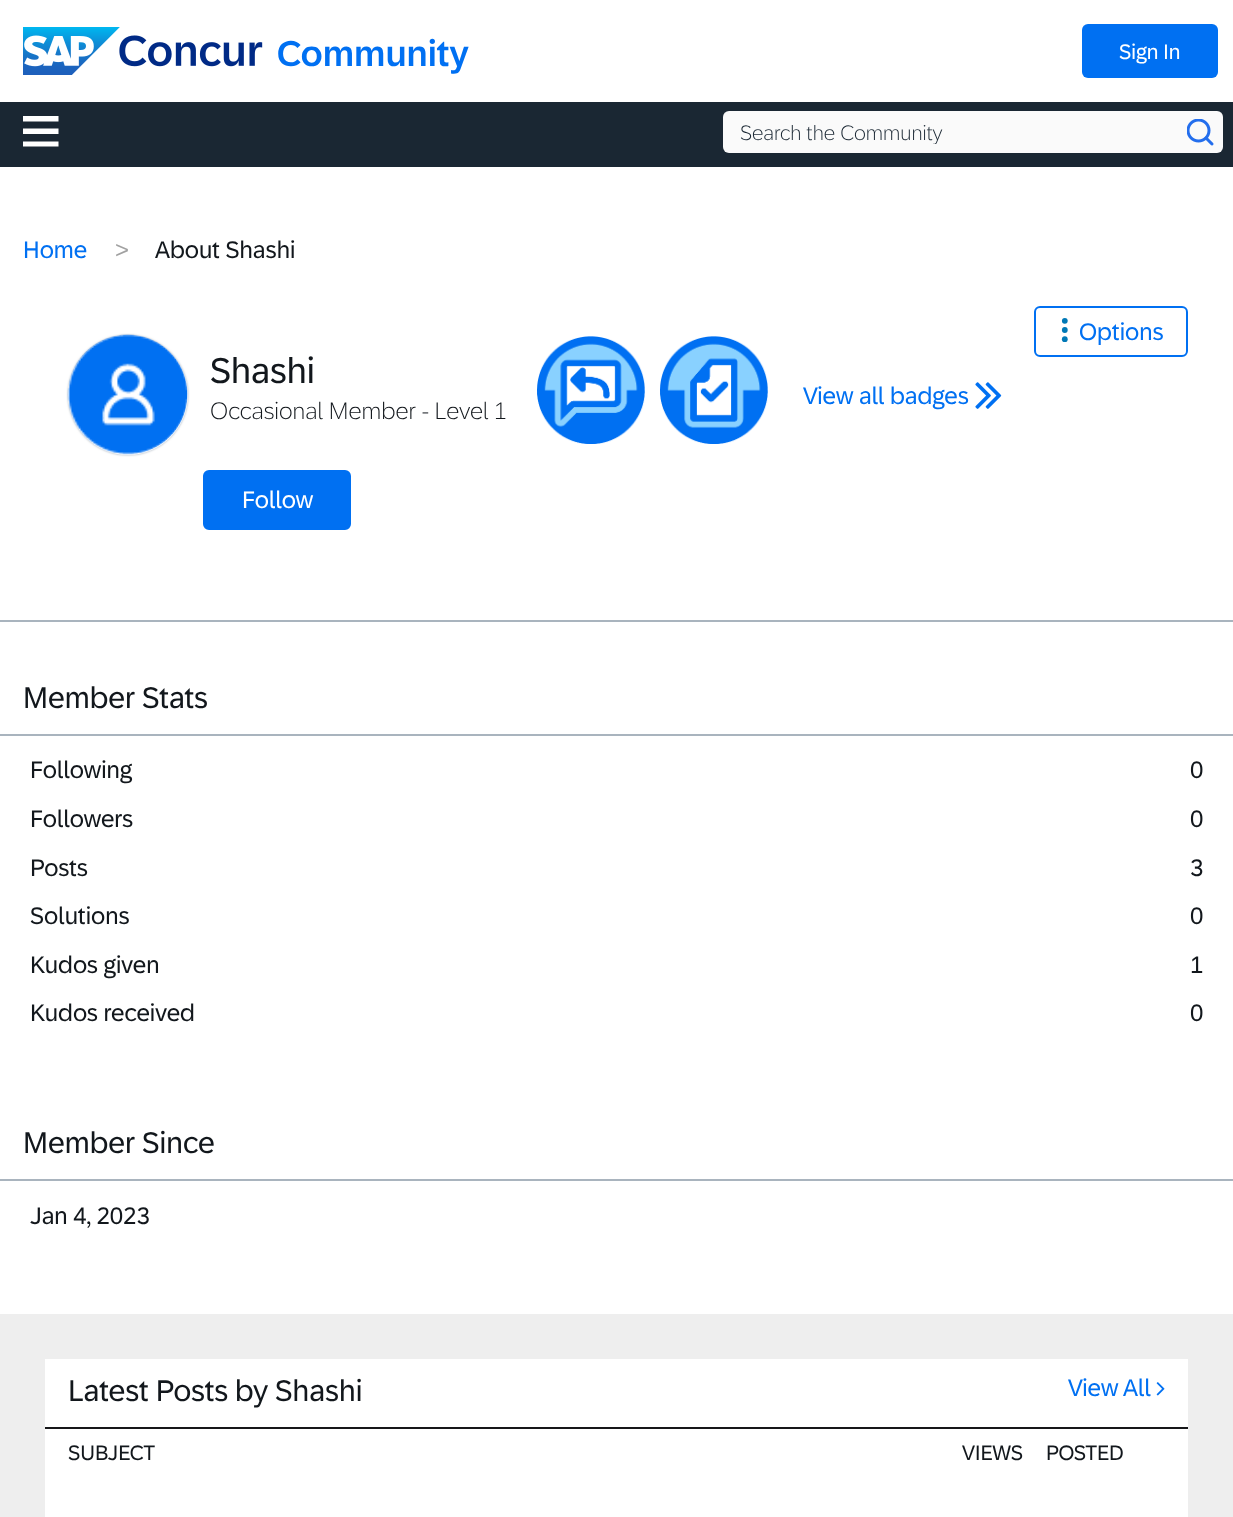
<svg xmlns="http://www.w3.org/2000/svg" width="1233" height="1517" viewBox="0 0 1233 1517">
  <defs>
    <clipPath id="clip1"><rect x="23" y="113" width="36" height="36"/></clipPath>
    <clipPath id="clip2"><rect x="740" y="120" width="444" height="24"/></clipPath>
    <clipPath id="clip3"><path d="M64 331H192V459H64ZM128 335C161 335 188 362 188 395C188 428 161 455 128 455C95 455 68 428 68 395C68 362 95 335 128 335Z" clip-rule="evenodd"/></clipPath>
    <filter id="blur1" x="-50%" y="-200%" width="200%" height="500%"><feGaussianBlur stdDeviation="1"/></filter>
  </defs>
  <rect width="100%" height="100%" fill="#ffffff"/>
  <image x="23" y="27" width="240" height="48" href="img1.png"/>
  <text x="277" y="66" font-family="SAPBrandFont" font-size="36" font-weight="500" fill="#0070f2">Community</text>
  <rect x="1082" y="24" width="136" height="54" rx="6" fill="#0070f2"/>
  <text x="1119" y="59" font-family="SAPBrandFont" font-size="21" fill="#ffffff">Sign In</text>
  <rect x="0" y="102" width="1233" height="65" fill="#1a2733"/>
  <g clip-path="url(#clip1)">
    <path d="M22.5 116H58.5V121.5H22.5ZM22.5 128.5H58.5V134H22.5ZM22.5 141.5H58.5V146.5H22.5Z" fill="#ffffff" fill-rule="evenodd"/>
  </g>
  <rect x="723" y="111" width="500" height="42" rx="6" fill="#fafafa"/>
  <g clip-path="url(#clip2)">
    <text x="740" y="140" font-family="SAPBrandFont" font-size="21" font-weight="300" fill="#1a2733">Search the Community</text>
  </g>
  <image x="1187" y="119" width="27" height="27" href="img2.png"/>
  <rect x="0" y="620" width="1233" height="2" fill="#a9b4be"/>
  <text x="23" y="258" font-family="SAPBrandFont" font-size="24" fill="#0070f2">Home</text>
  <text x="115" y="258" font-family="SAPBrandFont" font-size="24" fill="#a1a1a1">&gt;</text>
  <text x="155" y="258" font-family="SAPBrandFont" font-size="24" fill="#12171c">About Shashi</text>
  <rect x="1035" y="307" width="152" height="49" rx="5" fill="none" stroke="#0070f2" stroke-width="2"/>
  <circle cx="1064.8" cy="320.8" r="2.9" fill="#0078b6"/>
  <circle cx="1064.8" cy="330" r="2.9" fill="#0078b6"/>
  <circle cx="1064.8" cy="339.2" r="2.9" fill="#0078b6"/>
  <text x="1079" y="340" font-family="SAPBrandFont" font-size="24" fill="#0070f2">Options</text>
  <g clip-path="url(#clip3)">
    <rect x="68" y="335" width="120" height="120" rx="60" fill="#a9b4be" filter="url(#blur1)"/>
  </g>
  <image x="67" y="334" width="121" height="121" href="img3.png"/>
  <text x="210" y="383" font-family="SAPBrandFont" font-size="36" fill="#12171c">Shashi</text>
  <text x="210" y="419" font-family="SAPBrandFont" font-size="24" font-weight="300" fill="#12171c">Occasional Member - Level 1</text>
  <image x="537" y="336" width="108" height="108" href="img4.png"/>
  <image x="660" y="336" width="108" height="108" href="img5.png"/>
  <text x="803" y="404" font-family="SAPBrandFont" font-size="24" fill="#0070f2">View all badges</text>
  <image x="975" y="382" width="27" height="27" href="img6.png"/>
  <rect x="204" y="471" width="146" height="58" rx="5" fill="#0070f2" stroke="#0070f2" stroke-width="2"/>
  <text x="242" y="508" font-family="SAPBrandFont" font-size="24" fill="#ffffff">Follow</text>
  <rect x="0" y="734" width="1233" height="2" fill="#a9b4be"/>
  <text x="23" y="708" font-family="SAPBrandFont" font-size="30" fill="#12171c">Member Stats</text>
  <text x="30" y="778" font-family="SAPBrandFont" font-size="24" fill="#12171c">Following</text>
  <text x="1190" y="778" font-family="SAPBrandFont" font-size="24" fill="#12171c">0</text>
  <text x="30" y="827" font-family="SAPBrandFont" font-size="24" fill="#12171c">Followers</text>
  <text x="1190" y="827" font-family="SAPBrandFont" font-size="24" fill="#12171c">0</text>
  <text x="30" y="876" font-family="SAPBrandFont" font-size="24" fill="#12171c">Posts</text>
  <text x="1190" y="876" font-family="SAPBrandFont" font-size="24" fill="#12171c">3</text>
  <text x="30" y="924" font-family="SAPBrandFont" font-size="24" fill="#12171c">Solutions</text>
  <text x="1190" y="924" font-family="SAPBrandFont" font-size="24" fill="#12171c">0</text>
  <text x="30" y="973" font-family="SAPBrandFont" font-size="24" fill="#12171c">Kudos given</text>
  <text x="1190" y="973" font-family="SAPBrandFont" font-size="24" fill="#12171c">1</text>
  <text x="30" y="1021" font-family="SAPBrandFont" font-size="24" fill="#12171c">Kudos received</text>
  <text x="1190" y="1021" font-family="SAPBrandFont" font-size="24" fill="#12171c">0</text>
  <rect x="0" y="1179" width="1233" height="2" fill="#a9b4be"/>
  <text x="23" y="1153" font-family="SAPBrandFont" font-size="30" fill="#12171c">Member Since</text>
  <text x="30" y="1224" font-family="SAPBrandFont" font-size="24" fill="#12171c">Jan 4, 2023</text>
  <rect x="0" y="1314" width="1233" height="203" fill="#eeeeee"/>
  <rect x="45" y="1359" width="1143" height="158" fill="#ffffff"/>
  <text x="1068" y="1396" font-family="SAPBrandFont" font-size="24" fill="#0070f2">View All</text>
  <image x="1156" y="1382" width="9" height="14" href="img7.png"/>
  <rect x="45" y="1427" width="1143" height="2" fill="#161719"/>
  <text x="68" y="1460" font-family="SAPBrandFont" font-size="21" fill="#12171c">SUBJECT</text>
  <text x="962" y="1460" font-family="SAPBrandFont" font-size="21" fill="#12171c">VIEWS</text>
  <text x="1046" y="1460" font-family="SAPBrandFont" font-size="21" fill="#12171c">POSTED</text>
  <text x="68" y="1401" font-family="SAPBrandFont" font-size="30" fill="#12171c">Latest Posts by Shashi</text>
</svg>
